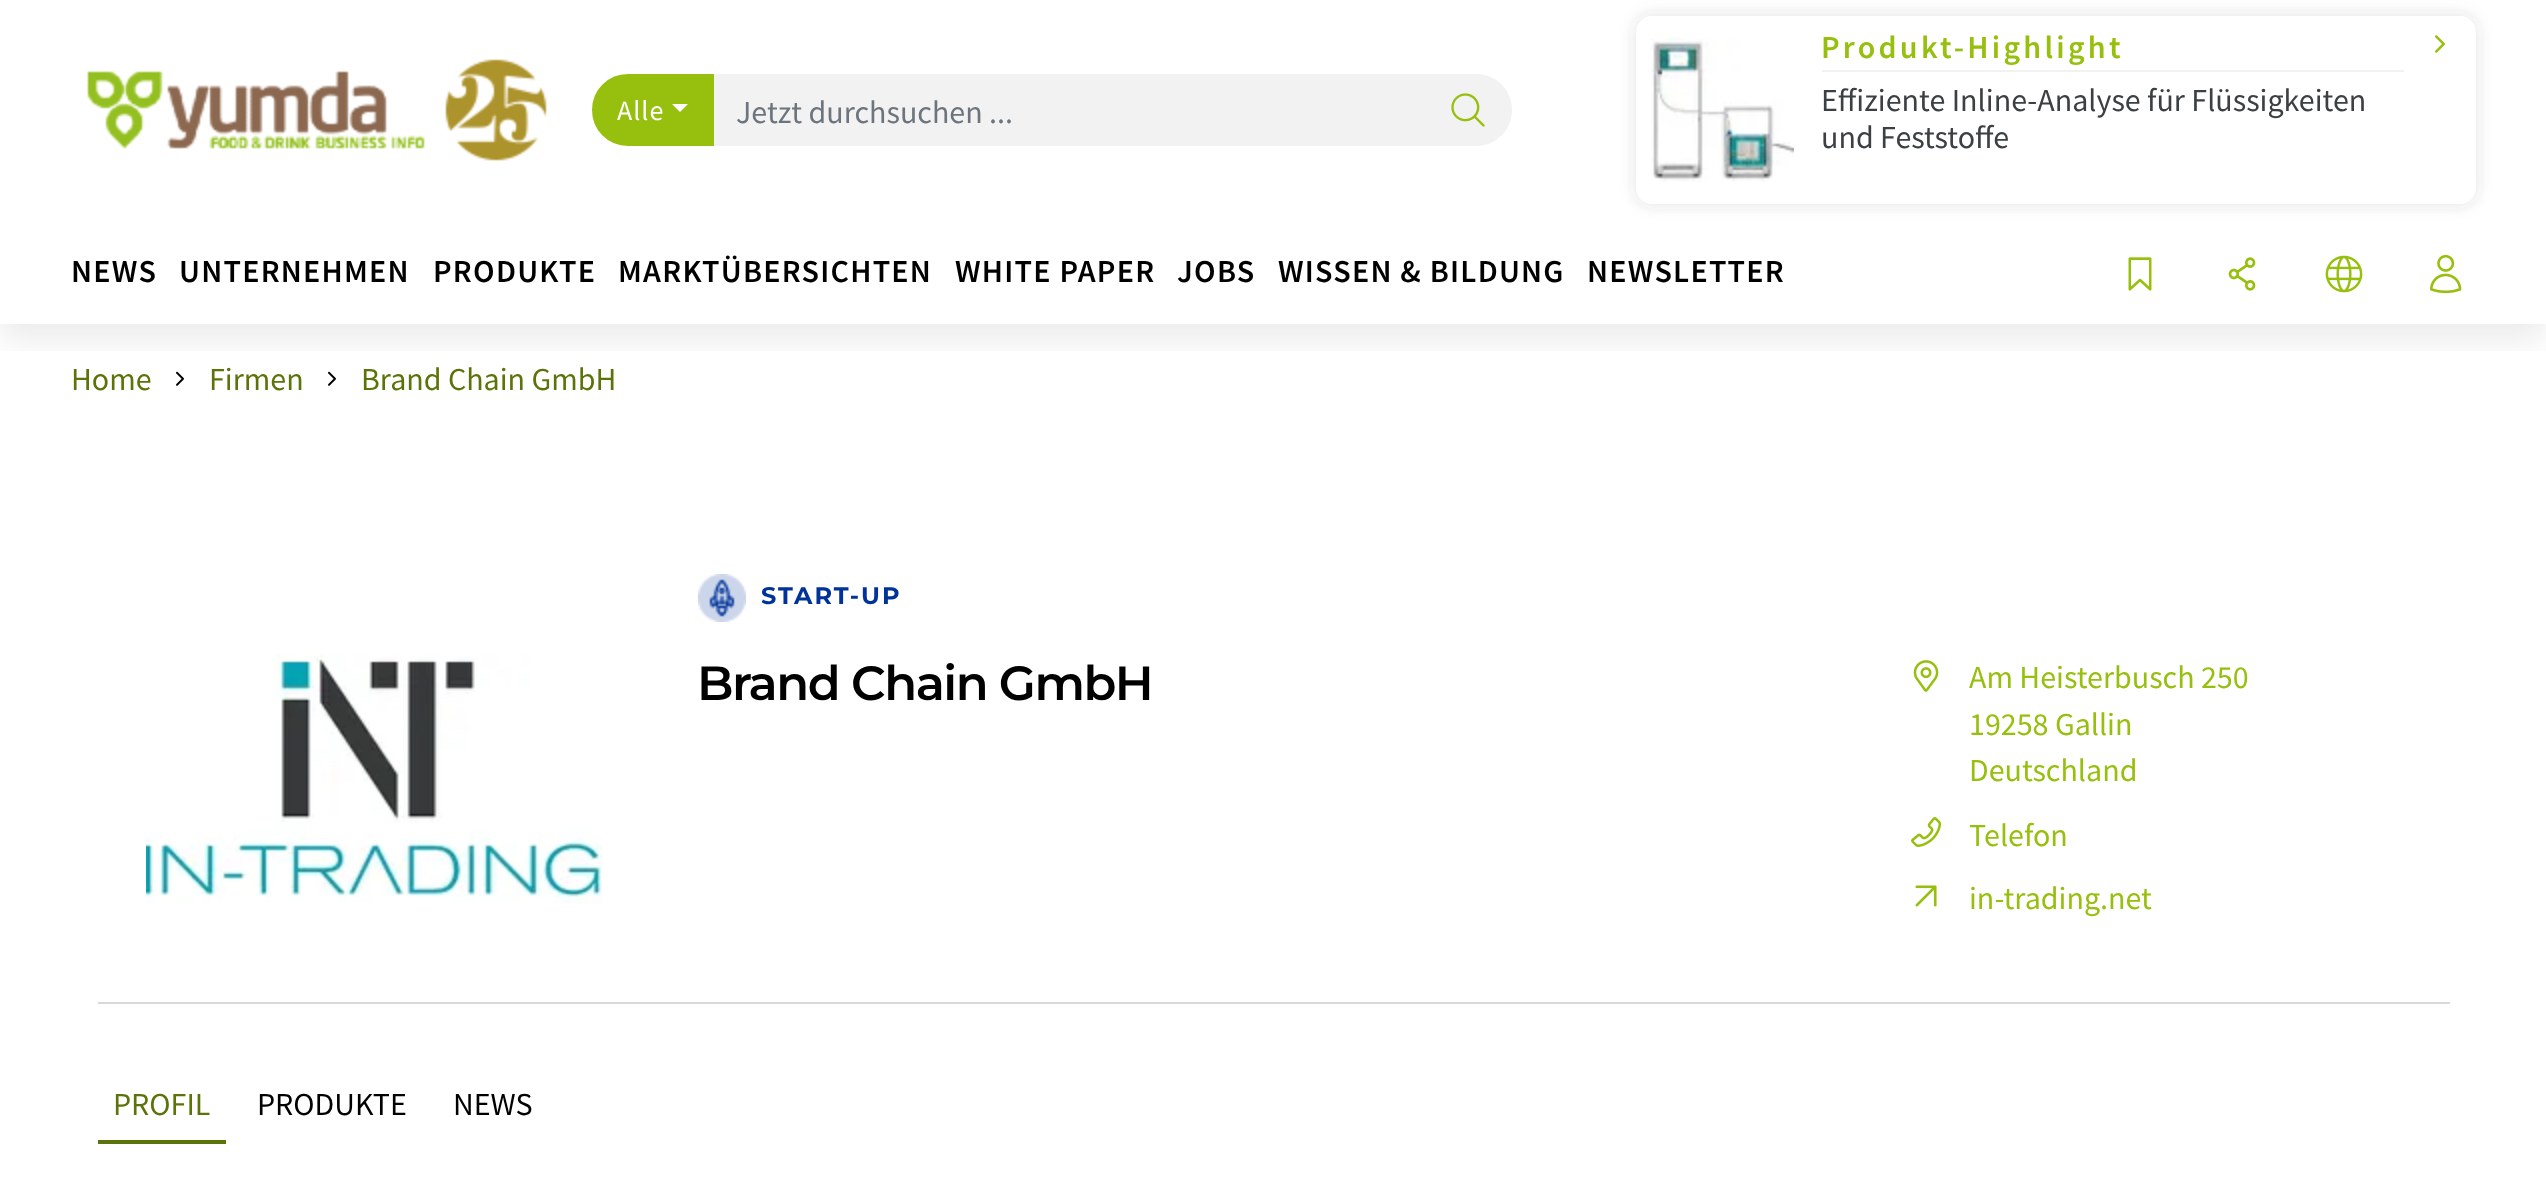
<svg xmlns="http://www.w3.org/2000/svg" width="2546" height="1194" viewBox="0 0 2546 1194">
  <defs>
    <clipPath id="clip1"><rect x="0" y="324" width="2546" height="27"/></clipPath>
    <filter id="blur1" x="-50%" y="-200%" width="200%" height="500%"><feGaussianBlur stdDeviation="16"/></filter>
    <filter id="blur2" x="-50%" y="-200%" width="200%" height="500%"><feGaussianBlur stdDeviation="8"/></filter>
  </defs>
  <rect width="100%" height="100%" fill="#ffffff"/>
  <image x="176" y="371" width="8" height="15" href="img9.png"/>
  <image x="328" y="371" width="8" height="15" href="img9.png"/>
  <g clip-path="url(#clip1)">
    <rect x="0" y="16" width="2546" height="324" fill="#000000" fill-opacity="0.08" filter="url(#blur1)"/>
  </g>
  <image x="86" y="59" width="461" height="102" href="img1.png"/>
  <path d="M712 74H1476C1496 74 1512 90 1512 110C1512 130 1496 146 1476 146H712Z" fill="#f2f2f2"/>
  <path d="M628 75H713V145H628C608.5 145 593 129.5 593 110C593 90.5 608.5 75 628 75Z" fill="#97bf0d" stroke="#97bf0d" stroke-width="2"/>
  <text x="617" y="120" font-family="Source Sans Pro" font-size="28" letter-spacing="1" fill="#ffffff">Alle</text>
  <path d="M672 104H688L680 112Z" fill="#ffffff"/>
  <text x="736" y="123" font-family="Source Sans Pro" font-size="32" fill="#6c757d">Jetzt durchsuchen ...</text>
  <image x="1451" y="93" width="34" height="34" href="img2.png"/>
  <rect x="1636" y="16" width="840" height="188" rx="16" fill="#3c4042" fill-opacity="0.16" filter="url(#blur2)"/>
  <rect x="1636" y="16" width="840" height="188" rx="16" fill="#ffffff"/>
  <image x="1651" y="38" width="143" height="144" href="img3.png"/>
  <rect x="1822" y="70" width="582" height="2" fill="#f2f2f2"/>
  <text x="1821" y="58" font-family="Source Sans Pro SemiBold" font-size="32" font-weight="600" letter-spacing="3.25" fill="#97bf0d">Produkt-Highlight</text>
  <text x="1821" y="111" font-family="Source Sans Pro" font-size="32" fill="#3c4042">Effiziente Inline-Analyse für Flüssigkeiten</text>
  <text x="1821" y="148" font-family="Source Sans Pro" font-size="32" fill="#3c4042">und Feststoffe</text>
  <image x="2435" y="35" width="10" height="18" href="img4.png"/>
  <text x="71" y="282" font-family="Source Sans Pro SemiBold" font-size="32" font-weight="600" letter-spacing="1.25" fill="#000000">NEWS</text>
  <text x="179" y="282" font-family="Source Sans Pro SemiBold" font-size="32" font-weight="600" letter-spacing="1.25" fill="#000000">UNTERNEHMEN</text>
  <text x="433" y="282" font-family="Source Sans Pro SemiBold" font-size="32" font-weight="600" letter-spacing="1.25" fill="#000000">PRODUKTE</text>
  <text x="618" y="282" font-family="Source Sans Pro SemiBold" font-size="32" font-weight="600" letter-spacing="1.25" fill="#000000">MARKTÜBERSICHTEN</text>
  <text x="955" y="282" font-family="Source Sans Pro SemiBold" font-size="32" font-weight="600" letter-spacing="1.25" fill="#000000">WHITE PAPER</text>
  <text x="1177" y="282" font-family="Source Sans Pro SemiBold" font-size="32" font-weight="600" letter-spacing="1.25" fill="#000000">JOBS</text>
  <text x="1278" y="282" font-family="Source Sans Pro SemiBold" font-size="32" font-weight="600" letter-spacing="1.25" fill="#000000">WISSEN &amp; BILDUNG</text>
  <text x="1587" y="282" font-family="Source Sans Pro SemiBold" font-size="32" font-weight="600" letter-spacing="1.25" fill="#000000">NEWSLETTER</text>
  <image x="2128" y="257" width="24" height="34" href="img5.png"/>
  <image x="2228" y="257" width="28" height="34" href="img6.png"/>
  <image x="2325" y="255" width="38" height="38" href="img7.png"/>
  <image x="2430" y="254" width="32" height="40" href="img8.png"/>
  <text x="71" y="390" font-family="Source Sans Pro" font-size="32" fill="#5b7308">Home</text>
  <text x="209" y="390" font-family="Source Sans Pro" font-size="32" fill="#5b7308">Firmen</text>
  <text x="361" y="390" font-family="Source Sans Pro" font-size="32" fill="#5b7308">Brand Chain GmbH</text>
  <image x="698" y="574" width="48" height="48" href="img10.png"/>
  <text x="761" y="604" font-family="Montserrat" font-size="24" font-weight="100" letter-spacing="2" fill="#003399">START-UP</text>
  <image x="146" y="654" width="456" height="250" href="img11.png"/>
  <text x="697" y="700" font-family="'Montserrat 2'" font-size="48" font-weight="100" letter-spacing="-1.5" fill="#000000">Brand Chain GmbH</text>
  <image x="1913" y="660" width="26" height="32" href="img12.png"/>
  <text x="1969" y="688" font-family="Source Sans Pro" font-size="32" fill="#97bf0d">Am Heisterbusch 250</text>
  <text x="1969" y="735" font-family="Source Sans Pro" font-size="32" fill="#97bf0d">19258 Gallin</text>
  <text x="1969" y="781" font-family="Source Sans Pro" font-size="32" fill="#97bf0d">Deutschland</text>
  <image x="1911" y="817" width="30" height="30" href="img13.png"/>
  <text x="1969" y="846" font-family="Source Sans Pro" font-size="32" fill="#97bf0d">Telefon</text>
  <image x="1915" y="885" width="22" height="22" href="img14.png"/>
  <text x="1969" y="909" font-family="Source Sans Pro" font-size="32" fill="#97bf0d">in-trading.net</text>
  <rect x="98" y="1002" width="2352" height="2" fill="#d9d9d9"/>
  <rect x="98" y="1140" width="128" height="4" fill="#5b7308"/>
  <text x="113" y="1115" font-family="Source Sans Pro" font-size="32" fill="#5b7308">PROFIL</text>
  <text x="257" y="1115" font-family="Source Sans Pro" font-size="32" fill="#000000">PRODUKTE</text>
  <text x="453" y="1115" font-family="Source Sans Pro" font-size="32" fill="#000000">NEWS</text>
</svg>
